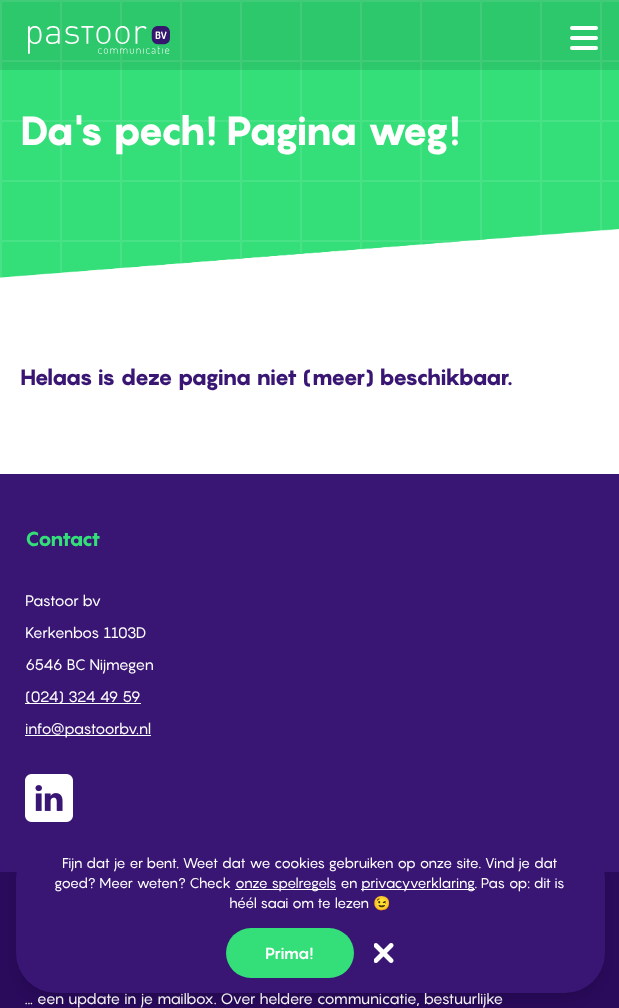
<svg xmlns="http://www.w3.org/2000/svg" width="619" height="1008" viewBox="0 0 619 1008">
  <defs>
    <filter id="blur1" x="-50%" y="-200%" width="200%" height="500%"><feGaussianBlur stdDeviation="3"/></filter>
    <filter id="blur2" x="-50%" y="-200%" width="200%" height="500%"><feGaussianBlur stdDeviation="7.5"/></filter>
  </defs>
  <rect width="100%" height="100%" fill="#ffffff"/>
  <rect x="0" y="0" width="619" height="278" fill="#34df79"/>
  <image x="0" y="0" width="619" height="278" href="img2.png"/>
  <rect x="0" y="0" width="619" height="70" fill="#000000" fill-opacity="0.1"/>
  <image x="28" y="26" width="142" height="28" href="img1.png"/>
  <rect x="570" y="26" width="28" height="4" rx="2" fill="#ffffff"/>
  <rect x="570" y="36" width="28" height="4" rx="2" fill="#ffffff"/>
  <rect x="570" y="46" width="28" height="4" rx="2" fill="#ffffff"/>
  <text x="20" y="145" font-family="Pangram" font-size="40" font-weight="800" fill="#ffffff">Da's pech! Pagina weg!</text>
  <image x="0" y="229" width="619" height="51" href="img3.png"/>
  <text x="20" y="385" font-family="Pangram" font-size="22" font-weight="800" fill="#391673">Helaas is deze pagina niet (meer) beschikbaar.</text>
  <rect x="0" y="474" width="619" height="398" fill="#391673"/>
  <text x="25" y="546" font-family="Pangram" font-size="20" font-weight="800" fill="#34df79">Contact</text>
  <text x="25" y="606" font-family="Pangram" font-size="15" fill="#ffffff">Pastoor bv</text>
  <text x="25" y="638" font-family="Pangram" font-size="15" fill="#ffffff">Kerkenbos 1103D</text>
  <text x="25" y="670" font-family="Pangram" font-size="15" fill="#ffffff">6546 BC Nijmegen</text>
  <rect x="25" y="703" width="116" height="1" fill="#ffffff"/>
  <text x="25" y="702" font-family="Pangram" font-size="15" fill="#ffffff">(024) 324 49 59</text>
  <rect x="25" y="735" width="126" height="1" fill="#ffffff"/>
  <text x="25" y="734" font-family="Pangram" font-size="15" fill="#ffffff">info@pastoorbv.nl</text>
  <image x="25" y="774" width="48" height="48" href="img4.png"/>
  <rect x="0" y="872" width="619" height="136" fill="#290a5b"/>
  <text x="25" y="1004" font-family="Pangram" font-size="15" fill="#ffffff">... een update in je mailbox. Over heldere communicatie, bestuurlijke</text>
  <rect x="20" y="846" width="581" height="147" rx="36" fill="#000000" fill-opacity="0.1" filter="url(#blur1)"/>
  <rect x="19" y="851" width="583" height="149" rx="37" fill="#000000" fill-opacity="0.1" filter="url(#blur2)"/>
  <rect x="16" y="838" width="589" height="155" rx="40" fill="#391673"/>
  <text x="62" y="868" font-family="Pangram" font-size="14" fill="#ffffff">Fijn dat je er bent. Weet dat we cookies gebruiken op onze site. Vind je dat</text>
  <text x="54" y="888" font-family="Pangram" font-size="14" fill="#ffffff">goed? Meer weten? Check</text>
  <rect x="235" y="889" width="101" height="1" fill="#ffffff"/>
  <text x="235" y="888" font-family="Pangram" font-size="14" fill="#ffffff">onze spelregels en</text>
  <rect x="361" y="889" width="114" height="1" fill="#ffffff"/>
  <text x="361" y="888" font-family="Pangram" font-size="14" fill="#ffffff">privacyverklaring. Pas op: dit is</text>
  <text x="229" y="908" font-family="Pangram" font-size="14" fill="#ffffff">héél saai om te lezen</text>
  <text x="373" y="908" font-family="Noto Color Emoji" font-size="14" fill="#ffffff">😉</text>
  <rect x="226" y="928" width="128" height="50" rx="25" fill="#34df79"/>
  <text x="265" y="959" font-family="Pangram" font-size="16" font-weight="bold" fill="#ffffff">Prima!</text>
  <image x="374" y="943" width="20" height="20" href="img5.png"/>
</svg>
